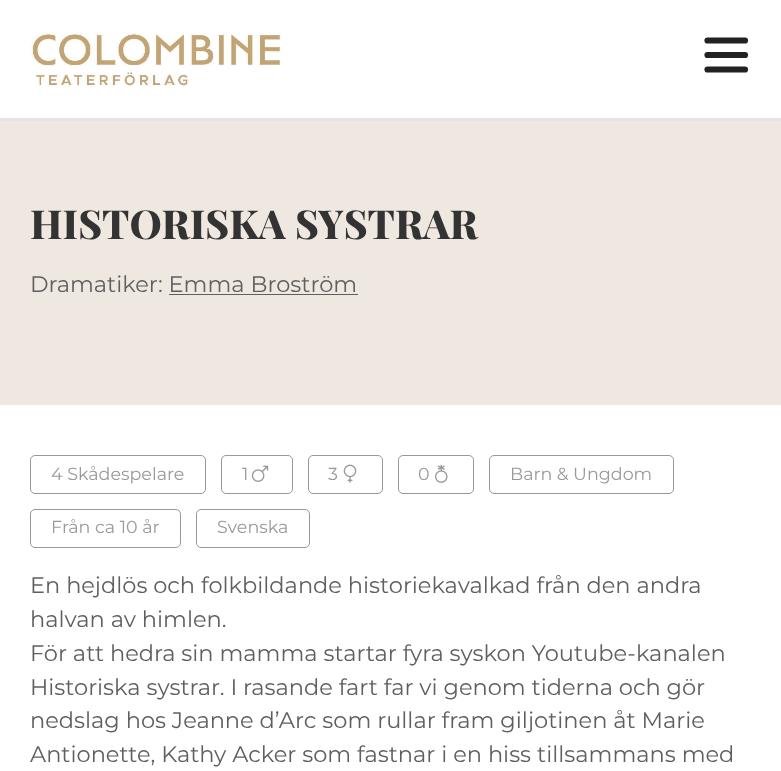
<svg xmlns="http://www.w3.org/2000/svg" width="781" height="771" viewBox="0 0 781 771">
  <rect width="100%" height="100%" fill="#ffffff"/>
  <rect x="0" y="118" width="781" height="3" fill="#e4e3e9"/>
  <image x="30" y="31" width="252" height="56" href="img1.png"/>
  <path d="M707.5 40.5H745M707.5 55H745M707.5 69.5H745" fill="none" stroke="#222222" stroke-width="6.2" stroke-linecap="round" stroke-linejoin="round"/>
  <rect x="0" y="121" width="781" height="284" fill="#eee8e0"/>
  <text x="30" y="239" font-family="Playfair Display" font-size="40" font-weight="800" fill="#333333">HISTORISKA SYSTRAR</text>
  <text x="30" y="292" font-family="Montserrat" font-size="22.5" fill="#5f5f5f">Dramatiker: Emma Broström</text>
  <rect x="169" y="294" width="189" height="1" fill="#5f5f5f"/>
  <rect x="30.5" y="455.5" width="175" height="38" rx="4.5" fill="none" stroke="#999999"/>
  <text x="51" y="480" font-family="Montserrat" font-size="17.5" fill="#999999">4 Skådespelare</text>
  <rect x="221.5" y="455.5" width="71" height="38" rx="4.5" fill="none" stroke="#999999"/>
  <text x="242" y="480" font-family="Montserrat" font-size="17.5" fill="#999999">1</text>
  <image x="251" y="465" width="18" height="17" href="img2.png"/>
  <rect x="308.5" y="455.5" width="74" height="38" rx="4.5" fill="none" stroke="#999999"/>
  <text x="328" y="480" font-family="Montserrat" font-size="17.5" fill="#999999">3</text>
  <image x="343" y="464" width="14" height="19" href="img3.png"/>
  <rect x="398.5" y="455.5" width="75" height="38" rx="4.5" fill="none" stroke="#999999"/>
  <text x="418" y="480" font-family="Montserrat" font-size="17.5" fill="#999999">0</text>
  <image x="435" y="464" width="13" height="19" href="img4.png"/>
  <rect x="489.5" y="455.5" width="184" height="38" rx="4.5" fill="none" stroke="#999999"/>
  <text x="510" y="480" font-family="Montserrat" font-size="17.5" fill="#999999">Barn &amp; Ungdom</text>
  <rect x="30.5" y="509.5" width="150" height="38" rx="4.5" fill="none" stroke="#999999"/>
  <text x="51" y="533" font-family="Montserrat" font-size="17.5" fill="#999999">Från ca 10 år</text>
  <rect x="196.5" y="509.5" width="113" height="38" rx="4.5" fill="none" stroke="#999999"/>
  <text x="217" y="533" font-family="Montserrat" font-size="17.5" fill="#999999">Svenska</text>
  <text x="30" y="593" font-family="Montserrat" font-size="22.5" fill="#5f5f5f">En hejdlös och folkbildande historiekavalkad från den andra</text>
  <text x="30" y="627" font-family="Montserrat" font-size="22.5" fill="#5f5f5f">halvan av himlen.</text>
  <text x="30" y="661" font-family="Montserrat" font-size="22.5" fill="#5f5f5f">För att hedra sin mamma startar fyra syskon Youtube-kanalen</text>
  <text x="30" y="695" font-family="Montserrat" font-size="22.5" fill="#5f5f5f">Historiska systrar. I rasande fart far vi genom tiderna och gör</text>
  <text x="30" y="728" font-family="Montserrat" font-size="22.5" fill="#5f5f5f">nedslag hos Jeanne d’Arc som rullar fram giljotinen åt Marie</text>
  <text x="30" y="762" font-family="Montserrat" font-size="22.5" fill="#5f5f5f">Antionette, Kathy Acker som fastnar i en hiss tillsammans med</text>
</svg>
